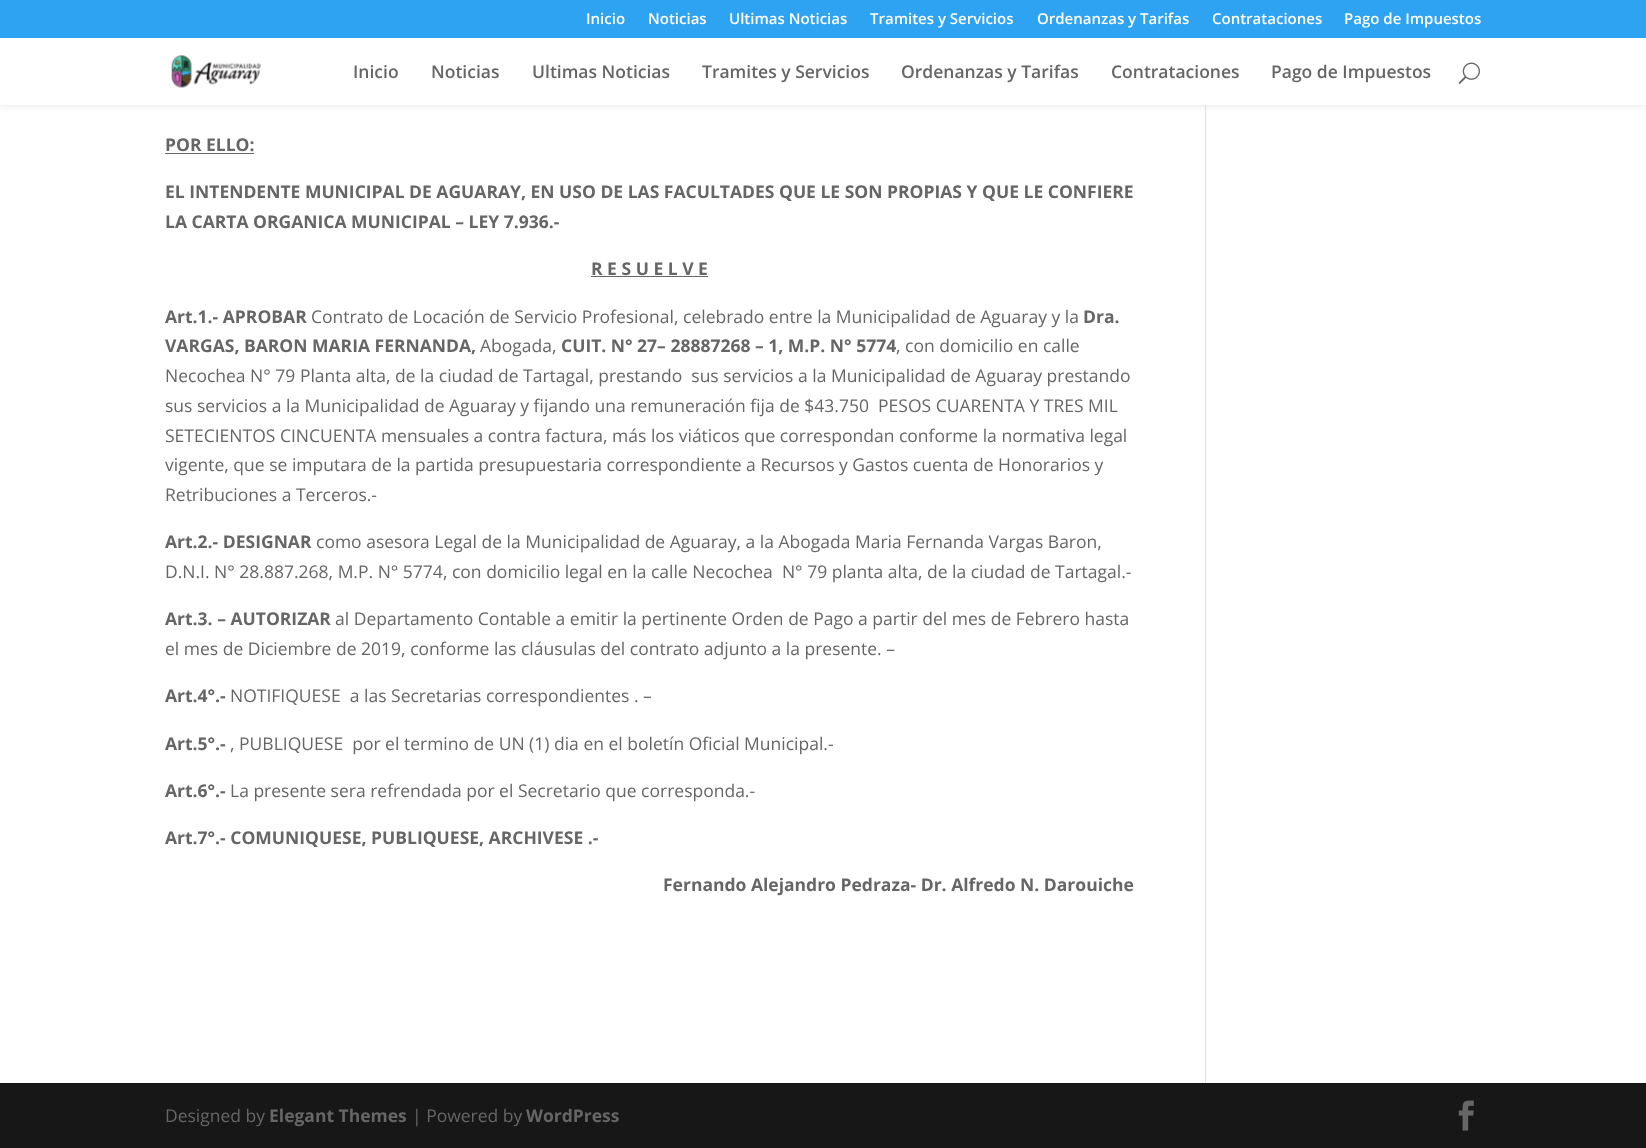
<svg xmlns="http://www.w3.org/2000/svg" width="1646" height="1148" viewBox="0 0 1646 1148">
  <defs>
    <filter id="blur1" x="-50%" y="-200%" width="200%" height="500%"><feGaussianBlur stdDeviation="4.5"/></filter>
  </defs>
  <rect width="100%" height="100%" fill="#ffffff"/>
  <rect x="1205" y="105" width="1" height="978" fill="#e2e2e2"/>
  <rect x="0" y="38" width="1646" height="67" fill="#000000" fill-opacity="0.1" filter="url(#blur1)"/>
  <rect x="0" y="0" width="1646" height="38" fill="#2ea3f2"/>
  <text x="586" y="24" font-family="Open Sans" font-size="15" font-weight="600" fill="#ffffff">Inicio</text>
  <text x="648" y="24" font-family="Open Sans" font-size="15" font-weight="600" fill="#ffffff">Noticias</text>
  <text x="729" y="24" font-family="Open Sans" font-size="15" font-weight="600" fill="#ffffff">Ultimas Noticias</text>
  <text x="870" y="24" font-family="Open Sans" font-size="15" font-weight="600" fill="#ffffff">Tramites y Servicios</text>
  <text x="1037" y="24" font-family="Open Sans" font-size="15" font-weight="600" fill="#ffffff">Ordenanzas y Tarifas</text>
  <text x="1212" y="24" font-family="Open Sans" font-size="15" font-weight="600" fill="#ffffff">Contrataciones</text>
  <text x="1344" y="24" font-family="Open Sans" font-size="15" font-weight="600" fill="#ffffff">Pago de Impuestos</text>
  <rect x="0" y="38" width="1646" height="67" fill="#ffffff"/>
  <image x="171" y="55" width="90" height="33" href="img1.png"/>
  <text x="353" y="78" font-family="Open Sans" font-size="17.5" font-weight="600" fill="#666666">Inicio</text>
  <text x="431" y="78" font-family="Open Sans" font-size="17.5" font-weight="600" fill="#666666">Noticias</text>
  <text x="532" y="78" font-family="Open Sans" font-size="17.5" font-weight="600" fill="#666666">Ultimas Noticias</text>
  <text x="702" y="78" font-family="Open Sans" font-size="17.5" font-weight="600" fill="#666666">Tramites y Servicios</text>
  <text x="901" y="78" font-family="Open Sans" font-size="17.5" font-weight="600" fill="#666666">Ordenanzas y Tarifas</text>
  <text x="1111" y="78" font-family="Open Sans" font-size="17.5" font-weight="600" fill="#666666">Contrataciones</text>
  <text x="1271" y="78" font-family="Open Sans" font-size="17.5" font-weight="600" fill="#666666">Pago de Impuestos</text>
  <image x="1458" y="62" width="22" height="22" href="img2.png"/>
  <text x="165" y="151" font-family="Open Sans" font-size="17.5" font-weight="bold" fill="#666666">POR ELLO:</text>
  <rect x="165" y="153" width="89" height="1" fill="#666666"/>
  <text x="165" y="198" font-family="Open Sans" font-size="17.5" font-weight="bold" fill="#666666">EL INTENDENTE MUNICIPAL DE AGUARAY, EN USO DE LAS FACULTADES QUE LE SON PROPIAS Y QUE LE CONFIERE</text>
  <text x="165" y="228" font-family="Open Sans" font-size="17.5" font-weight="bold" fill="#666666">LA CARTA ORGANICA MUNICIPAL – LEY 7.936.-</text>
  <text x="591" y="275" font-family="Open Sans" font-size="17.5" font-weight="bold" fill="#666666">R E S U E L V E</text>
  <rect x="591" y="276" width="117" height="1" fill="#666666"/>
  <text x="165" y="323" font-family="Open Sans" font-size="17.5" font-weight="bold" fill="#666666">Art.1.- APROBAR</text>
  <text x="311" y="323" font-family="Open Sans" font-size="17.5" fill="#666666">Contrato de Locación de Servicio Profesional, celebrado entre la Municipalidad de Aguaray y la</text>
  <text x="1083" y="323" font-family="Open Sans" font-size="17.5" font-weight="bold" fill="#666666">Dra.</text>
  <text x="165" y="352" font-family="Open Sans" font-size="17.5" font-weight="bold" fill="#666666">VARGAS, BARON MARIA FERNANDA,</text>
  <text x="480" y="352" font-family="Open Sans" font-size="17.5" fill="#666666">Abogada,</text>
  <text x="561" y="352" font-family="Open Sans" font-size="17.5" font-weight="bold" fill="#666666">CUIT. N° 27– 28887268 – 1, M.P. N° 5774</text>
  <text x="896" y="352" font-family="Open Sans" font-size="17.5" fill="#666666">, con domicilio en calle</text>
  <text x="165" y="382" font-family="Open Sans" font-size="17.5" fill="#666666" xml:space="preserve">Necochea N° 79 Planta alta, de la ciudad de Tartagal, prestando  sus servicios a la Municipalidad de Aguaray prestando</text>
  <text x="165" y="412" font-family="Open Sans" font-size="17.5" fill="#666666" xml:space="preserve">sus servicios a la Municipalidad de Aguaray y fijando una remuneración fija de $43.750  PESOS CUARENTA Y TRES MIL</text>
  <text x="165" y="442" font-family="Open Sans" font-size="17.5" fill="#666666">SETECIENTOS CINCUENTA mensuales a contra factura, más los viáticos que correspondan conforme la normativa legal</text>
  <text x="165" y="471" font-family="Open Sans" font-size="17.5" fill="#666666">vigente, que se imputara de la partida presupuestaria correspondiente a Recursos y Gastos cuenta de Honorarios y</text>
  <text x="165" y="501" font-family="Open Sans" font-size="17.5" fill="#666666">Retribuciones a Terceros.-</text>
  <text x="165" y="548" font-family="Open Sans" font-size="17.5" font-weight="bold" fill="#666666">Art.2.- DESIGNAR</text>
  <text x="316" y="548" font-family="Open Sans" font-size="17.5" fill="#666666">como asesora Legal de la Municipalidad de Aguaray, a la Abogada Maria Fernanda Vargas Baron,</text>
  <text x="165" y="578" font-family="Open Sans" font-size="17.5" fill="#666666" xml:space="preserve">D.N.I. N° 28.887.268, M.P. N° 5774, con domicilio legal en la calle Necochea  N° 79 planta alta, de la ciudad de Tartagal.-</text>
  <text x="165" y="625" font-family="Open Sans" font-size="17.5" font-weight="bold" fill="#666666">Art.3. – AUTORIZAR</text>
  <text x="335" y="625" font-family="Open Sans" font-size="17.5" fill="#666666">al Departamento Contable a emitir la pertinente Orden de Pago a partir del mes de Febrero hasta</text>
  <text x="165" y="655" font-family="Open Sans" font-size="17.5" fill="#666666">el mes de Diciembre de 2019, conforme las cláusulas del contrato adjunto a la presente. –</text>
  <text x="165" y="702" font-family="Open Sans" font-size="17.5" font-weight="bold" fill="#666666">Art.4°.-</text>
  <text x="230" y="702" font-family="Open Sans" font-size="17.5" fill="#666666" xml:space="preserve">NOTIFIQUESE  a las Secretarias correspondientes . –</text>
  <text x="165" y="750" font-family="Open Sans" font-size="17.5" font-weight="bold" fill="#666666">Art.5°.-</text>
  <text x="230" y="750" font-family="Open Sans" font-size="17.5" fill="#666666" xml:space="preserve">, PUBLIQUESE  por el termino de UN (1) dia en el boletín Oficial Municipal.-</text>
  <text x="165" y="797" font-family="Open Sans" font-size="17.5" font-weight="bold" fill="#666666">Art.6°.-</text>
  <text x="230" y="797" font-family="Open Sans" font-size="17.5" fill="#666666">La presente sera refrendada por el Secretario que corresponda.-</text>
  <text x="165" y="844" font-family="Open Sans" font-size="17.5" font-weight="bold" fill="#666666">Art.7°.- COMUNIQUESE, PUBLIQUESE, ARCHIVESE .-</text>
  <text x="663" y="891" font-family="Open Sans" font-size="17.5" font-weight="bold" fill="#666666">Fernando Alejandro Pedraza- Dr. Alfredo N. Darouiche</text>
  <rect x="0" y="1083" width="1646" height="65" fill="#171717"/>
  <text x="165" y="1122" font-family="Open Sans" font-size="17.5" fill="#666666">Designed by</text>
  <text x="269" y="1122" font-family="Open Sans" font-size="17.5" font-weight="bold" fill="#666666">Elegant Themes</text>
  <text x="412" y="1122" font-family="Open Sans" font-size="17.5" fill="#666666">| Powered by</text>
  <text x="526" y="1122" font-family="Open Sans" font-size="17.5" font-weight="bold" fill="#666666">WordPress</text>
  <image x="1458" y="1100" width="16" height="31" href="img3.png"/>
</svg>
